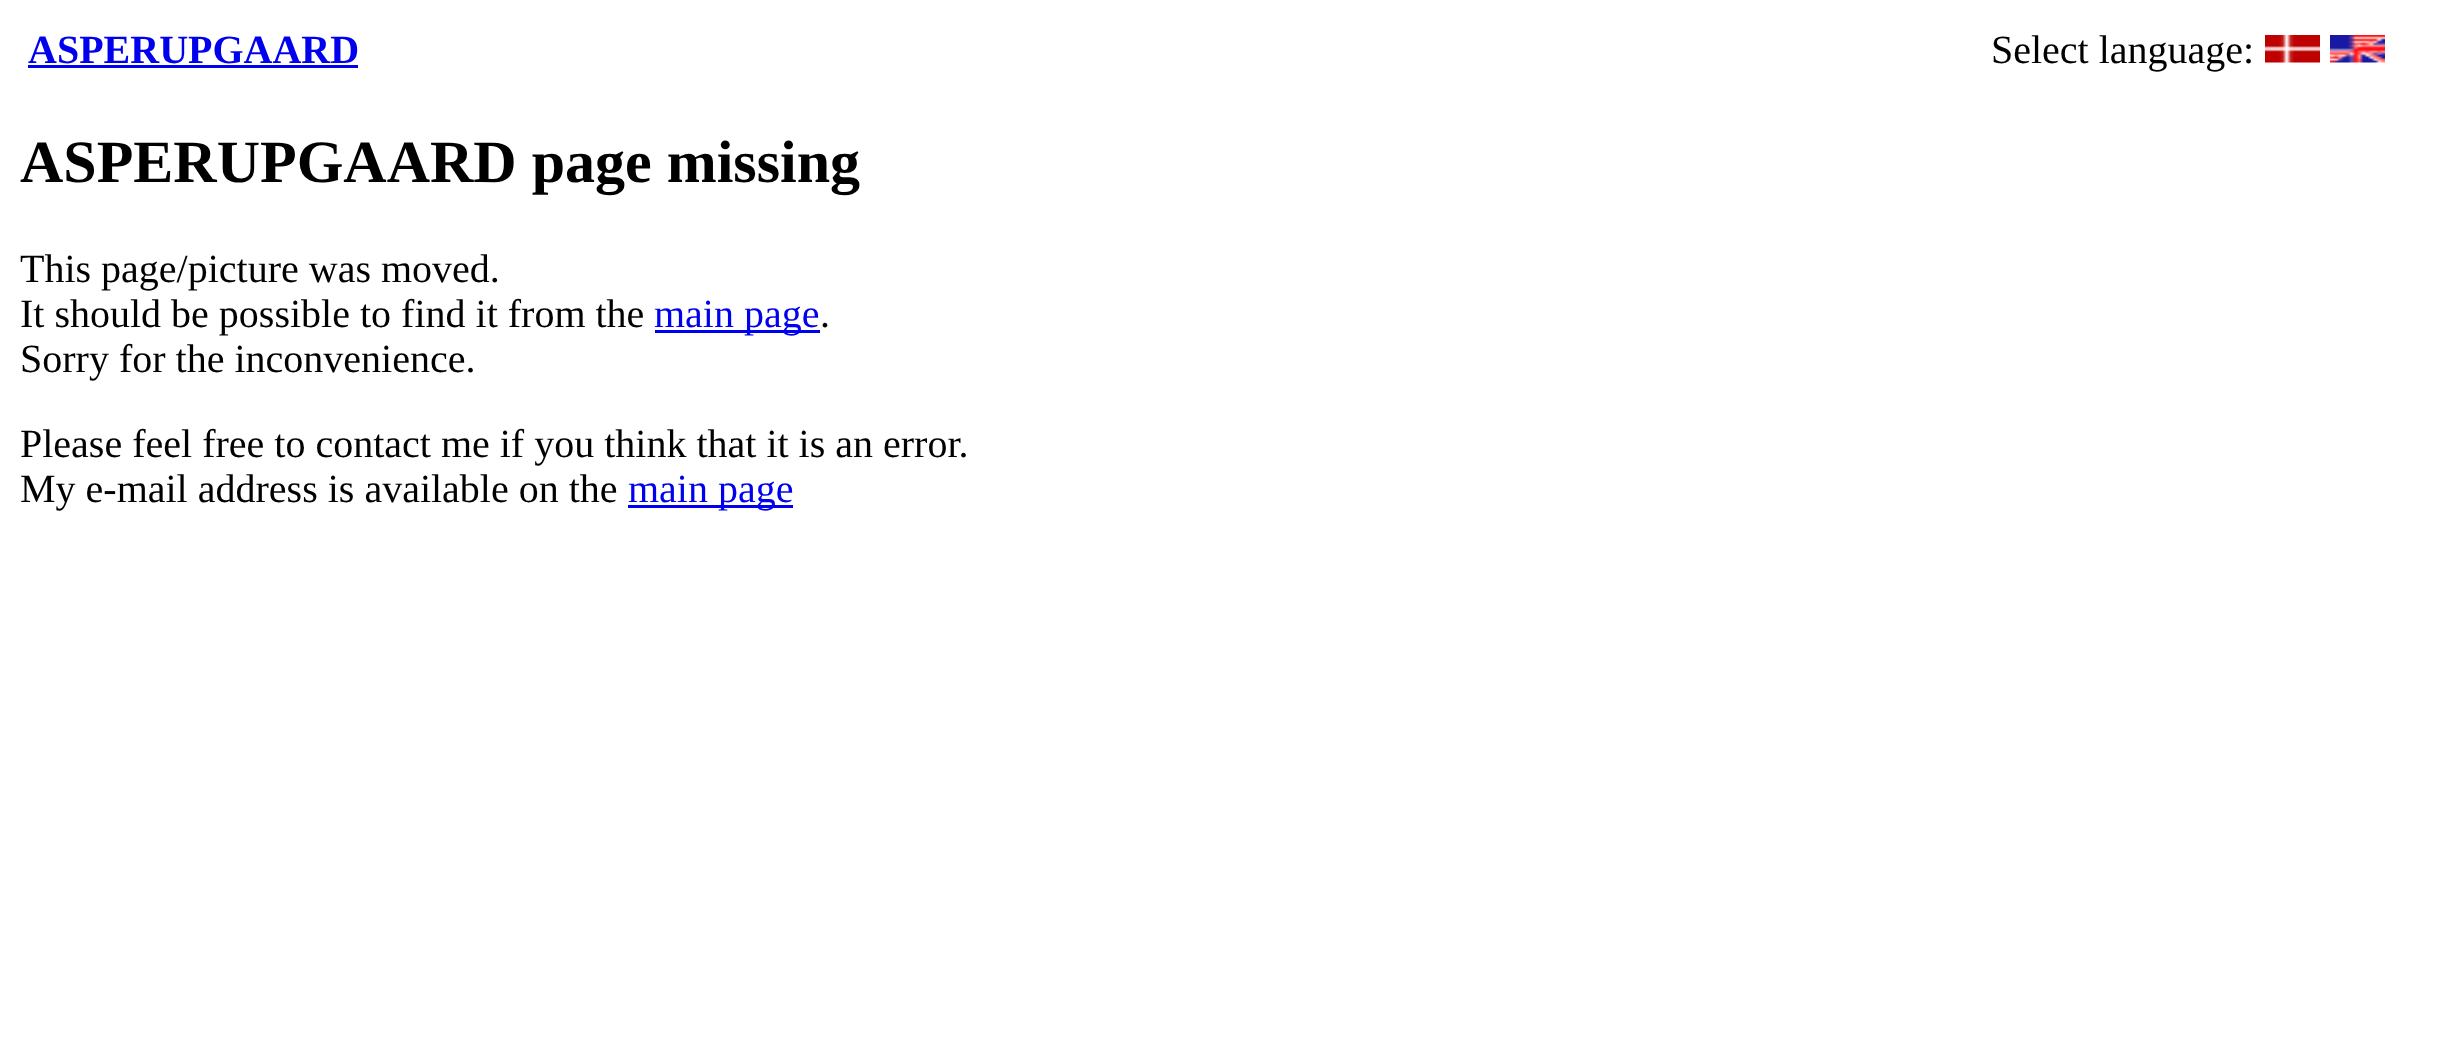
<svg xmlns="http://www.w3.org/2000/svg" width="2460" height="1060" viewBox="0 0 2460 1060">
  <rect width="100%" height="100%" fill="#ffffff"/>
  <text x="28" y="63" font-family="Liberation Serif" font-size="40" font-weight="bold" fill="#0000ee">ASPERUPGAARD</text>
  <rect x="28" y="65" width="330" height="3" fill="#0000ee"/>
  <text x="1991" y="63" font-family="Liberation Serif" font-size="40" fill="#000000">Select language:</text>
  <image x="2265" y="35" width="55" height="28" href="img1.png"/>
  <image x="2330" y="35" width="55" height="28" href="img2.png"/>
  <text x="20" y="182" font-family="Liberation Serif" font-size="60" font-weight="bold" fill="#000000">ASPERUPGAARD page missing</text>
  <text x="20" y="282" font-family="Liberation Serif" font-size="40" fill="#000000">This page/picture was moved.</text>
  <text x="20" y="327" font-family="Liberation Serif" font-size="40" fill="#000000">It should be possible to find it from the</text>
  <rect x="655" y="330" width="165" height="3" fill="#0000ee"/>
  <text x="654" y="327" font-family="Liberation Serif" font-size="40" fill="#0000ee">main page</text>
  <text x="820" y="327" font-family="Liberation Serif" font-size="40" fill="#000000">.</text>
  <text x="20" y="372" font-family="Liberation Serif" font-size="40" fill="#000000">Sorry for the inconvenience.</text>
  <text x="20" y="457" font-family="Liberation Serif" font-size="40" fill="#000000">Please feel free to contact me if you think that it is an error.</text>
  <text x="20" y="502" font-family="Liberation Serif" font-size="40" fill="#000000">My e-mail address is available on the</text>
  <rect x="628" y="505" width="165" height="3" fill="#0000ee"/>
  <text x="628" y="502" font-family="Liberation Serif" font-size="40" fill="#0000ee">main page</text>
</svg>
